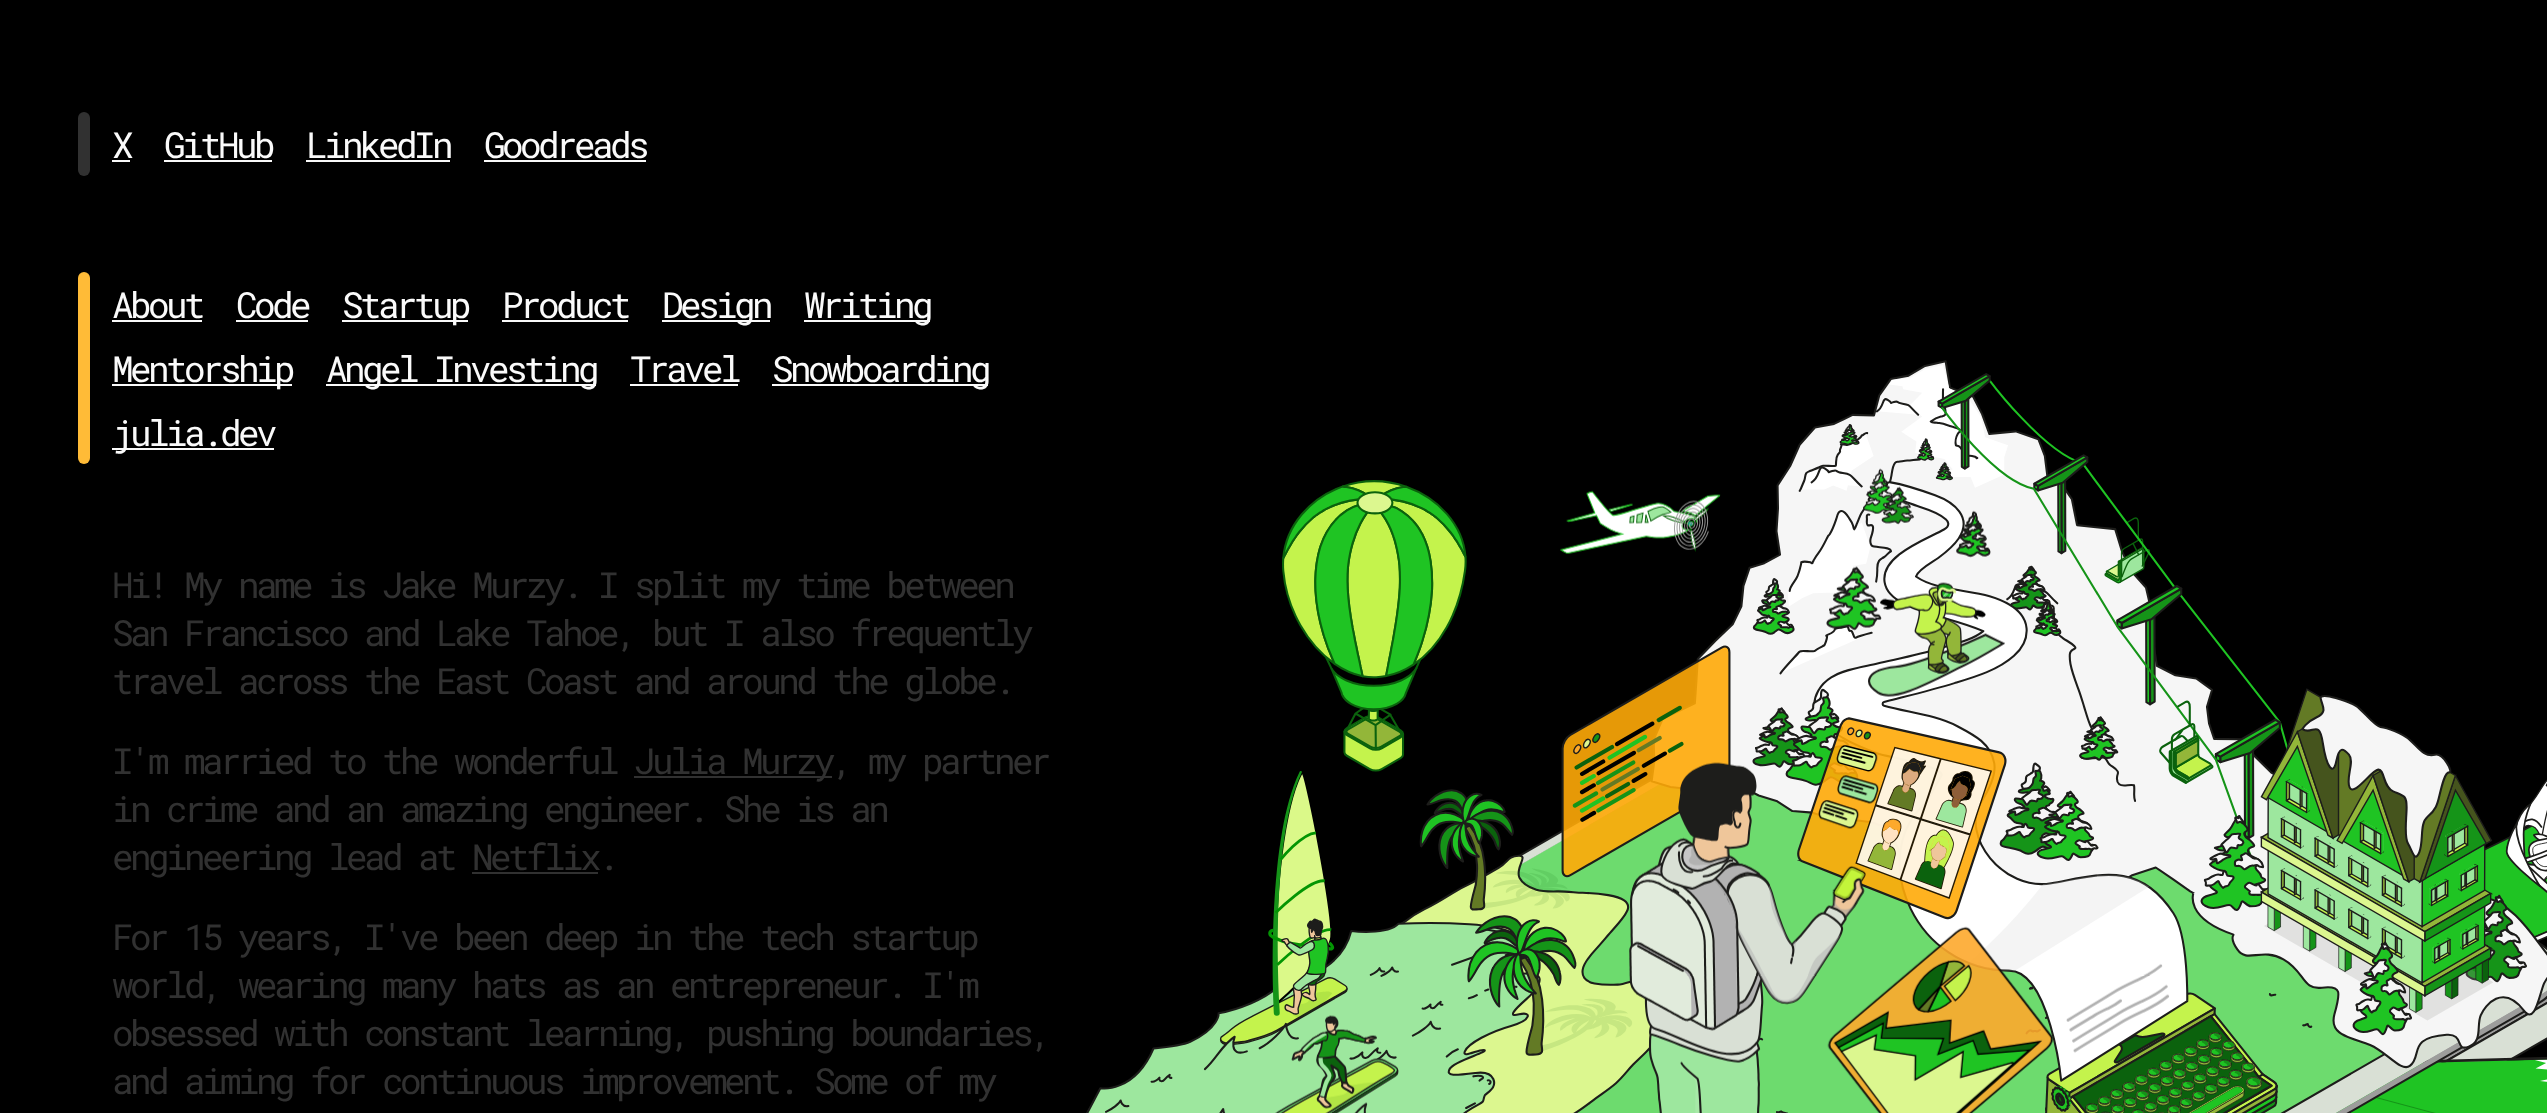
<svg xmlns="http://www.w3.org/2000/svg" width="2547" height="1113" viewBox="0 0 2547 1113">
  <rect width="100%" height="100%" fill="#000000"/>
  <rect x="78" y="112" width="12" height="64" rx="6" fill="#313131"/>
  <text x="112" y="158" font-family="Roboto Mono" font-size="36" letter-spacing="-3.6" fill="#fafafa">X</text>
  <rect x="112" y="160" width="18" height="2" fill="#fafafa"/>
  <text x="164" y="158" font-family="Roboto Mono" font-size="36" letter-spacing="-3.6" fill="#fafafa">GitHub</text>
  <rect x="164" y="160" width="108" height="2" fill="#fafafa"/>
  <text x="306" y="158" font-family="Roboto Mono" font-size="36" letter-spacing="-3.6" fill="#fafafa">LinkedIn</text>
  <rect x="306" y="160" width="144" height="2" fill="#fafafa"/>
  <text x="484" y="158" font-family="Roboto Mono" font-size="36" letter-spacing="-3.6" fill="#fafafa">Goodreads</text>
  <rect x="484" y="160" width="162" height="2" fill="#fafafa"/>
  <rect x="78" y="272" width="12" height="192" rx="6" fill="#ffbb37"/>
  <text x="112" y="318" font-family="Roboto Mono" font-size="36" letter-spacing="-3.6" fill="#fafafa">About</text>
  <rect x="112" y="320" width="90" height="2" fill="#fafafa"/>
  <text x="236" y="318" font-family="Roboto Mono" font-size="36" letter-spacing="-3.6" fill="#fafafa">Code</text>
  <rect x="236" y="320" width="72" height="2" fill="#fafafa"/>
  <rect x="342" y="320" width="126" height="2" fill="#fafafa"/>
  <text x="342" y="318" font-family="Roboto Mono" font-size="36" letter-spacing="-3.6" fill="#fafafa">Startup</text>
  <text x="502" y="318" font-family="Roboto Mono" font-size="36" letter-spacing="-3.6" fill="#fafafa">Product</text>
  <rect x="502" y="320" width="126" height="2" fill="#fafafa"/>
  <rect x="662" y="320" width="108" height="2" fill="#fafafa"/>
  <text x="662" y="318" font-family="Roboto Mono" font-size="36" letter-spacing="-3.6" fill="#fafafa">Design</text>
  <rect x="804" y="320" width="126" height="2" fill="#fafafa"/>
  <text x="804" y="318" font-family="Roboto Mono" font-size="36" letter-spacing="-3.6" fill="#fafafa">Writing</text>
  <rect x="112" y="384" width="180" height="2" fill="#fafafa"/>
  <text x="112" y="382" font-family="Roboto Mono" font-size="36" letter-spacing="-3.6" fill="#fafafa">Mentorship</text>
  <rect x="326" y="384" width="270" height="2" fill="#fafafa"/>
  <text x="326" y="382" font-family="Roboto Mono" font-size="36" letter-spacing="-3.6" fill="#fafafa">Angel Investing</text>
  <text x="630" y="382" font-family="Roboto Mono" font-size="36" letter-spacing="-3.6" fill="#fafafa">Travel</text>
  <rect x="630" y="384" width="108" height="2" fill="#fafafa"/>
  <rect x="772" y="384" width="216" height="2" fill="#fafafa"/>
  <text x="772" y="382" font-family="Roboto Mono" font-size="36" letter-spacing="-3.6" fill="#fafafa">Snowboarding</text>
  <rect x="112" y="448" width="162" height="2" fill="#fafafa"/>
  <text x="112" y="446" font-family="Roboto Mono" font-size="36" letter-spacing="-3.6" fill="#fafafa">julia.dev</text>
  <text x="112" y="598" font-family="Roboto Mono" font-size="36" letter-spacing="-3.6" fill="#313131">Hi! My name is Jake Murzy. I split my time between</text>
  <text x="112" y="646" font-family="Roboto Mono" font-size="36" letter-spacing="-3.6" fill="#313131">San Francisco and Lake Tahoe, but I also frequently</text>
  <text x="112" y="694" font-family="Roboto Mono" font-size="36" letter-spacing="-3.6" fill="#313131">travel across the East Coast and around the globe.</text>
  <text x="112" y="774" font-family="Roboto Mono" font-size="36" letter-spacing="-3.6" fill="#313131">I'm married to the wonderful</text>
  <rect x="634" y="776" width="198" height="2" fill="#313131"/>
  <text x="634" y="774" font-family="Roboto Mono" font-size="36" letter-spacing="-3.6" fill="#313131">Julia Murzy, my partner</text>
  <text x="112" y="822" font-family="Roboto Mono" font-size="36" letter-spacing="-3.6" fill="#313131">in crime and an amazing engineer. She is an</text>
  <text x="112" y="870" font-family="Roboto Mono" font-size="36" letter-spacing="-3.6" fill="#313131">engineering lead at Netflix.</text>
  <rect x="472" y="872" width="126" height="2" fill="#313131"/>
  <text x="112" y="950" font-family="Roboto Mono" font-size="36" letter-spacing="-3.6" fill="#313131">For 15 years, I've been deep in the tech startup</text>
  <text x="112" y="998" font-family="Roboto Mono" font-size="36" letter-spacing="-3.6" fill="#313131">world, wearing many hats as an entrepreneur. I'm</text>
  <text x="112" y="1046" font-family="Roboto Mono" font-size="36" letter-spacing="-3.6" fill="#313131">obsessed with constant learning, pushing boundaries,</text>
  <text x="112" y="1094" font-family="Roboto Mono" font-size="36" letter-spacing="-3.6" fill="#313131">and aiming for continuous improvement. Some of my</text>
  <image x="1086" y="360" width="1461" height="753" href="img1.png"/>
</svg>
